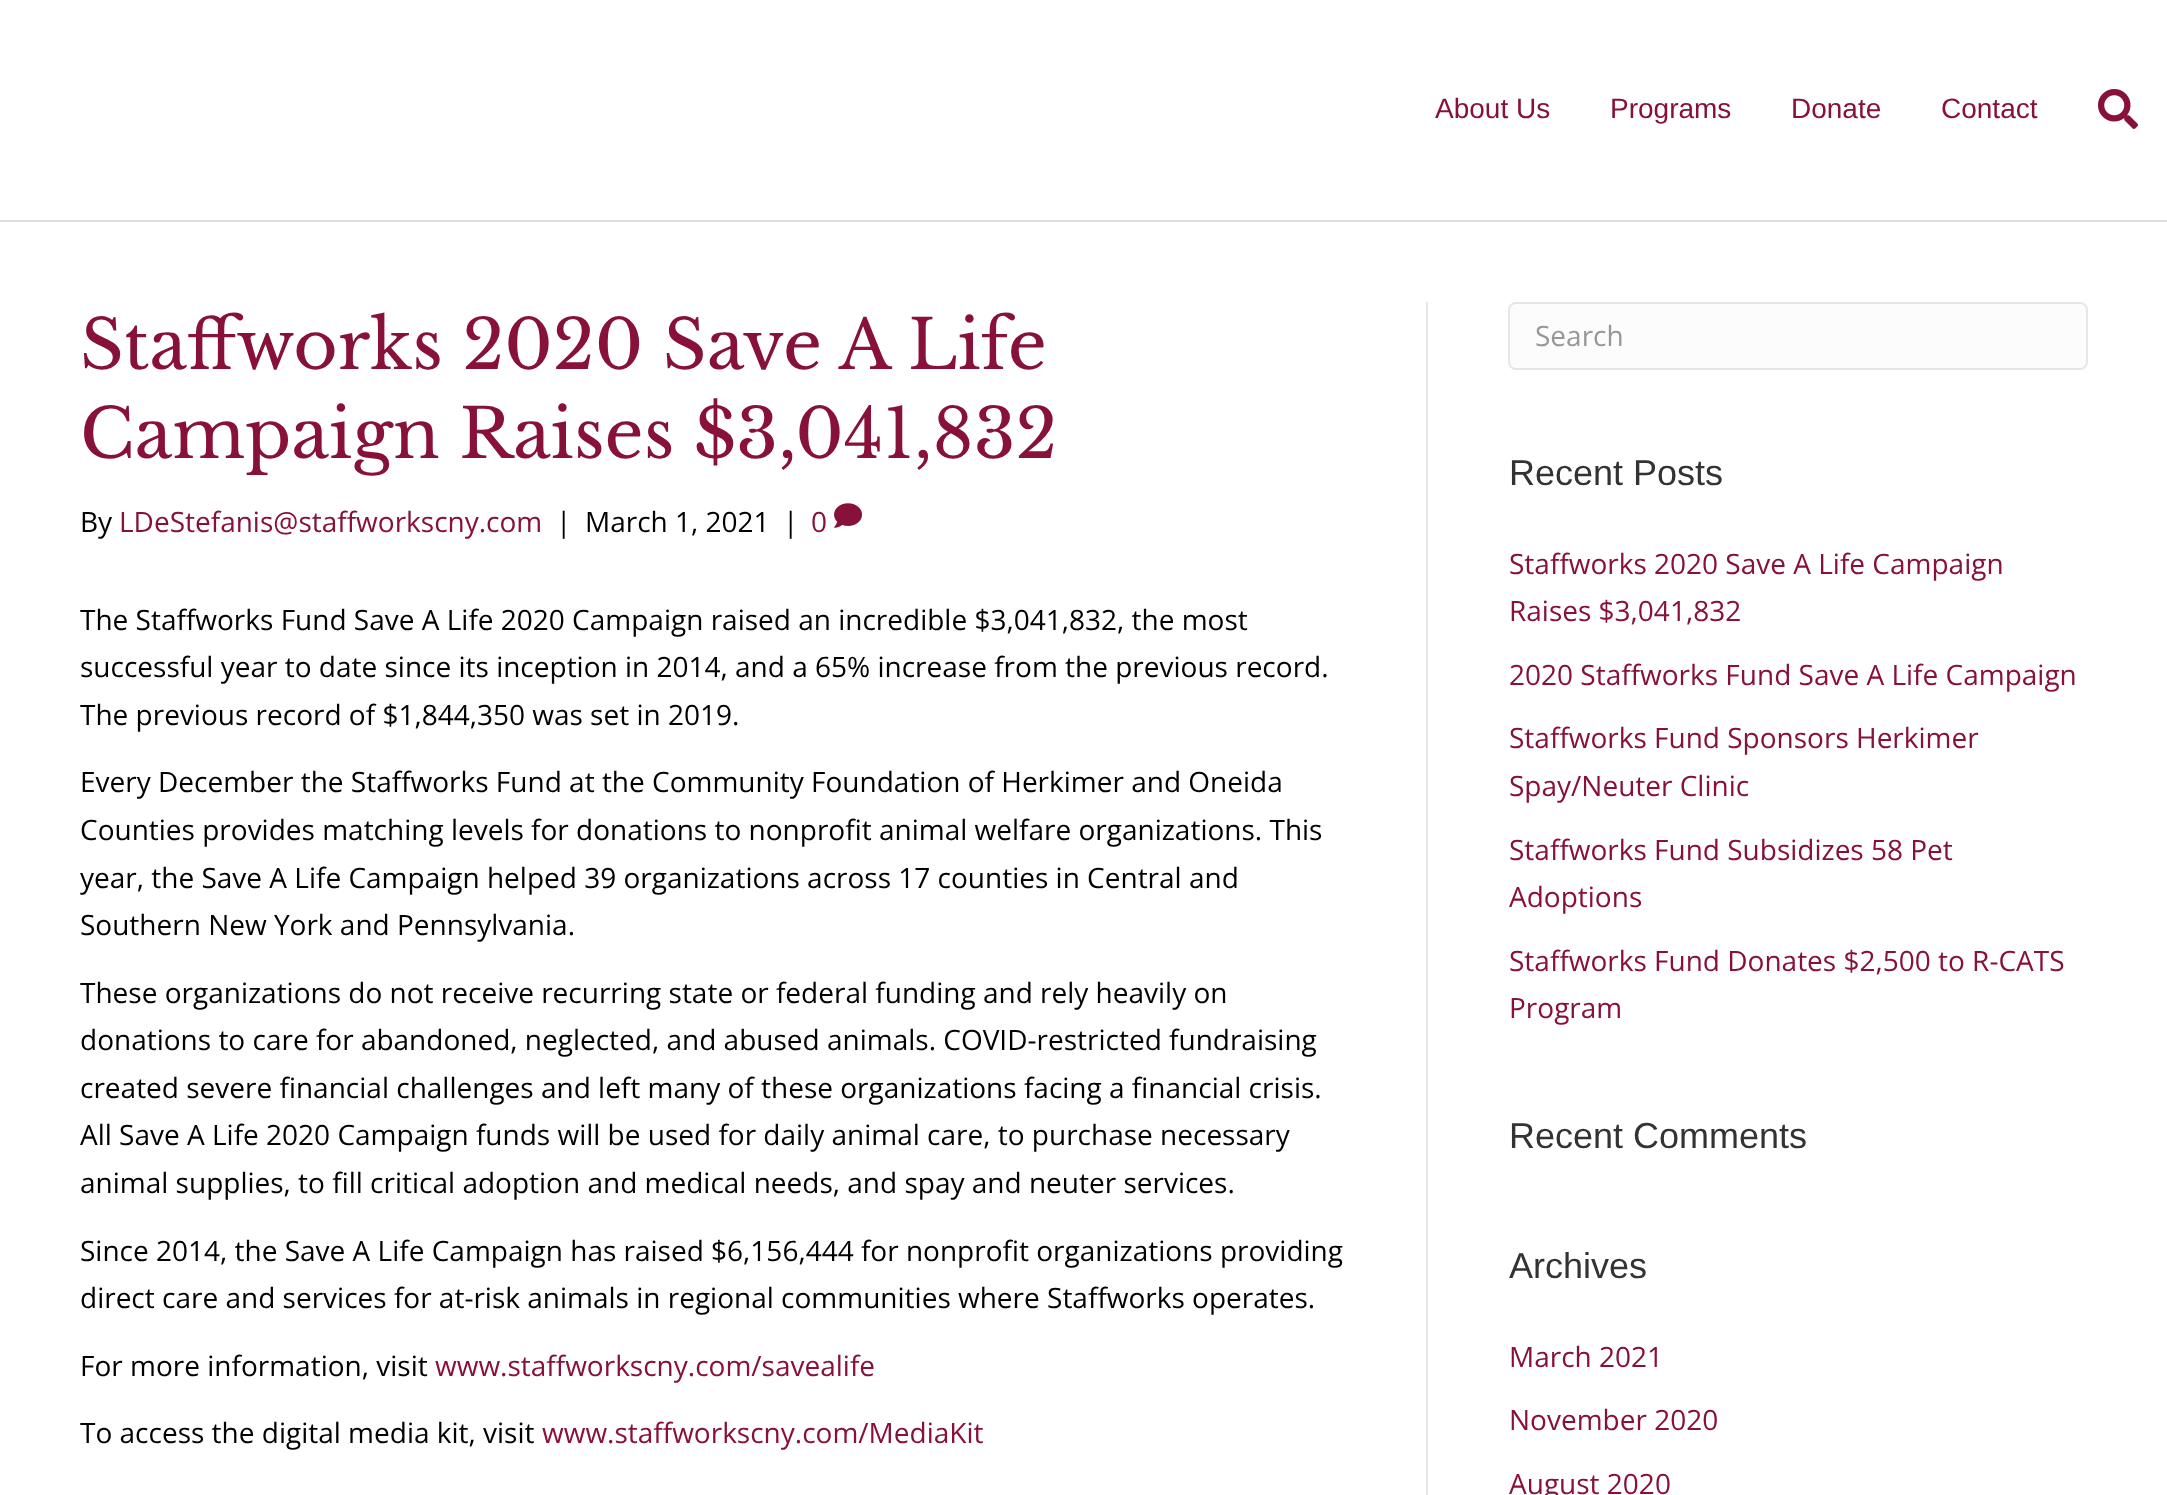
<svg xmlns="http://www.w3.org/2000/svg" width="2167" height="1495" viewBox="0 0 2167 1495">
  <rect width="100%" height="100%" fill="#ffffff"/>
  <rect x="0" y="220" width="2167" height="2" fill="#dedede"/>
  <text x="1435" y="118" font-family="Liberation Sans" font-size="28" fill="#88113a">About Us</text>
  <text x="1610" y="118" font-family="Liberation Sans" font-size="28" fill="#88113a">Programs</text>
  <text x="1791" y="118" font-family="Liberation Sans" font-size="28" fill="#88113a">Donate</text>
  <text x="1941" y="118" font-family="Liberation Sans" font-size="28" fill="#88113a">Contact</text>
  <image x="2098" y="89" width="40" height="40" href="img1.png"/>
  <rect x="1426" y="302" width="2" height="1193" fill="#e6e6e6"/>
  <text x="80" y="369" font-family="Libre Baskerville" font-size="68" fill="#88113a">Staffworks 2020 Save A Life</text>
  <text x="80" y="458" font-family="Libre Baskerville" font-size="68" fill="#88113a">Campaign Raises $3,041,832</text>
  <text x="80" y="532" font-family="Open Sans" font-size="28" fill="#000000">By</text>
  <text x="119" y="532" font-family="Open Sans" font-size="28" fill="#88113a">LDeStefanis@staffworkscny.com</text>
  <text x="556" y="532" font-family="Open Sans" font-size="28" fill="#000000">|</text>
  <text x="585" y="532" font-family="Open Sans" font-size="28" fill="#000000">March 1, 2021</text>
  <text x="783" y="532" font-family="Open Sans" font-size="28" fill="#000000">|</text>
  <text x="811" y="532" font-family="Open Sans" font-size="28" fill="#88113a">0</text>
  <image x="834" y="503" width="29" height="25" href="img2.png"/>
  <text x="80" y="630" font-family="Open Sans" font-size="28" fill="#000000">The Staffworks Fund Save A Life 2020 Campaign raised an incredible $3,041,832, the most</text>
  <text x="80" y="677" font-family="Open Sans" font-size="28" fill="#000000">successful year to date since its inception in 2014, and a 65% increase from the previous record.</text>
  <text x="80" y="725" font-family="Open Sans" font-size="28" fill="#000000">The previous record of $1,844,350 was set in 2019.</text>
  <text x="80" y="792" font-family="Open Sans" font-size="28" fill="#000000">Every December the Staffworks Fund at the Community Foundation of Herkimer and Oneida</text>
  <text x="80" y="840" font-family="Open Sans" font-size="28" fill="#000000">Counties provides matching levels for donations to nonprofit animal welfare organizations. This</text>
  <text x="80" y="888" font-family="Open Sans" font-size="28" fill="#000000">year, the Save A Life Campaign helped 39 organizations across 17 counties in Central and</text>
  <text x="80" y="935" font-family="Open Sans" font-size="28" fill="#000000">Southern New York and Pennsylvania.</text>
  <text x="80" y="1003" font-family="Open Sans" font-size="28" fill="#000000">These organizations do not receive recurring state or federal funding and rely heavily on</text>
  <text x="80" y="1050" font-family="Open Sans" font-size="28" fill="#000000">donations to care for abandoned, neglected, and abused animals. COVID-restricted fundraising</text>
  <text x="80" y="1098" font-family="Open Sans" font-size="28" fill="#000000">created severe financial challenges and left many of these organizations facing a financial crisis.</text>
  <text x="80" y="1145" font-family="Open Sans" font-size="28" fill="#000000">All Save A Life 2020 Campaign funds will be used for daily animal care, to purchase necessary</text>
  <text x="80" y="1193" font-family="Open Sans" font-size="28" fill="#000000">animal supplies, to fill critical adoption and medical needs, and spay and neuter services.</text>
  <text x="80" y="1261" font-family="Open Sans" font-size="28" fill="#000000">Since 2014, the Save A Life Campaign has raised $6,156,444 for nonprofit organizations providing</text>
  <text x="80" y="1308" font-family="Open Sans" font-size="28" fill="#000000">direct care and services for at-risk animals in regional communities where Staffworks operates.</text>
  <text x="80" y="1376" font-family="Open Sans" font-size="28" fill="#000000">For more information, visit</text>
  <text x="435" y="1376" font-family="Open Sans" font-size="28" fill="#88113a">www.staffworkscny.com/savealife</text>
  <text x="80" y="1443" font-family="Open Sans" font-size="28" fill="#000000">To access the digital media kit, visit</text>
  <text x="542" y="1443" font-family="Open Sans" font-size="28" fill="#88113a">www.staffworkscny.com/MediaKit</text>
  <rect x="1509" y="303" width="578" height="66" rx="7" fill="#fcfcfc" stroke="#e6e6e6" stroke-width="2"/>
  <text x="1535" y="346" font-family="Open Sans" font-size="28" fill="#979797">Search</text>
  <text x="1509" y="485" font-family="Liberation Sans" font-size="36" fill="#333333">Recent Posts</text>
  <text x="1509" y="574" font-family="Open Sans" font-size="28" fill="#88113a">Staffworks 2020 Save A Life Campaign</text>
  <text x="1509" y="621" font-family="Open Sans" font-size="28" fill="#88113a">Raises $3,041,832</text>
  <text x="1509" y="685" font-family="Open Sans" font-size="28" fill="#88113a">2020 Staffworks Fund Save A Life Campaign</text>
  <text x="1509" y="748" font-family="Open Sans" font-size="28" fill="#88113a">Staffworks Fund Sponsors Herkimer</text>
  <text x="1509" y="796" font-family="Open Sans" font-size="28" fill="#88113a">Spay/Neuter Clinic</text>
  <text x="1509" y="860" font-family="Open Sans" font-size="28" fill="#88113a">Staffworks Fund Subsidizes 58 Pet</text>
  <text x="1509" y="907" font-family="Open Sans" font-size="28" fill="#88113a">Adoptions</text>
  <text x="1509" y="971" font-family="Open Sans" font-size="28" fill="#88113a">Staffworks Fund Donates $2,500 to R-CATS</text>
  <text x="1509" y="1018" font-family="Open Sans" font-size="28" fill="#88113a">Program</text>
  <text x="1509" y="1148" font-family="Liberation Sans" font-size="36" fill="#333333">Recent Comments</text>
  <text x="1509" y="1278" font-family="Liberation Sans" font-size="36" fill="#333333">Archives</text>
  <text x="1509" y="1367" font-family="Open Sans" font-size="28" fill="#88113a">March 2021</text>
  <text x="1509" y="1430" font-family="Open Sans" font-size="28" fill="#88113a">November 2020</text>
  <text x="1509" y="1494" font-family="Open Sans" font-size="28" fill="#88113a">August 2020</text>
</svg>
